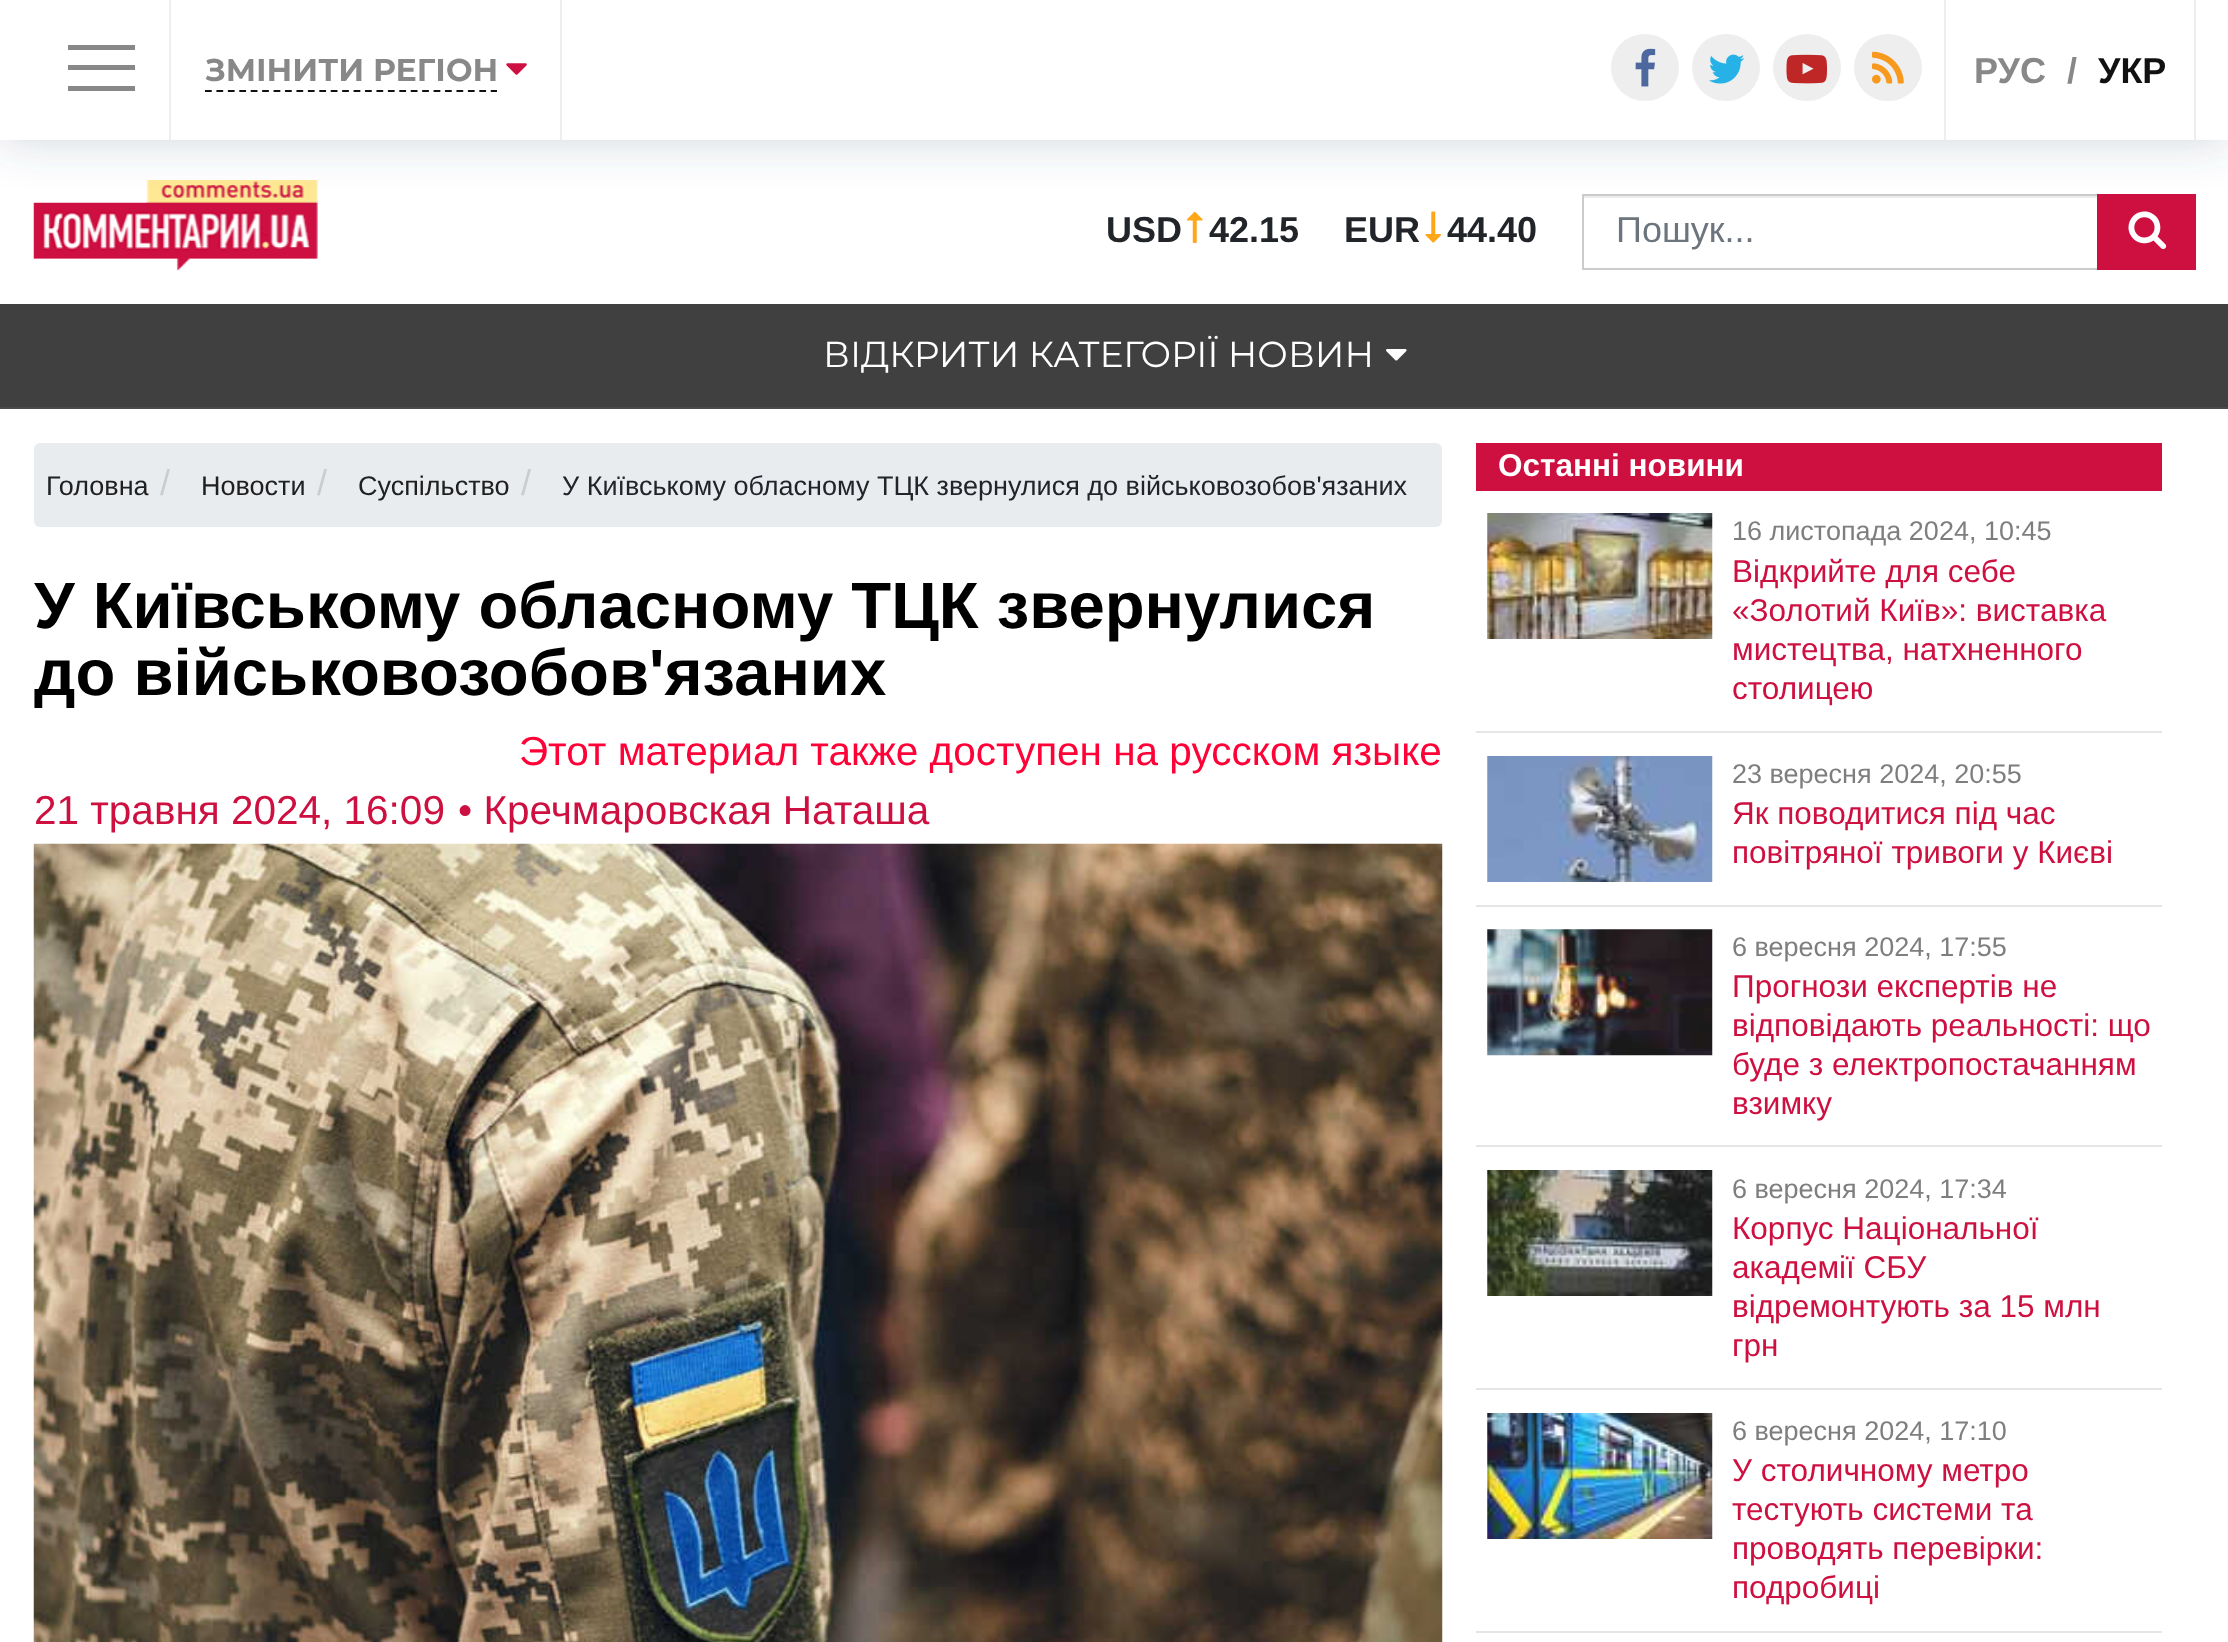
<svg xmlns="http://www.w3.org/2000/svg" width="2228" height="1642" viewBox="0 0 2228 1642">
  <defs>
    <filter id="blur1" x="-50%" y="-200%" width="200%" height="500%"><feGaussianBlur stdDeviation="23.5"/></filter>
  </defs>
  <rect width="100%" height="100%" fill="#ffffff"/>
  <image x="33" y="180" width="285" height="91" href="img6.png"/>
  <image x="1187" y="211" width="16" height="32" href="img7.png"/>
  <image x="1425" y="211" width="16" height="32" href="img8.png"/>
  <rect x="1584" y="196" width="513" height="2" fill="#ececec"/>
  <rect x="1583" y="195" width="612" height="74" fill="none" stroke="#cccccc" stroke-width="2"/>
  <rect x="2097" y="194" width="99" height="76" fill="#ce1041"/>
  <image x="2128" y="211" width="39" height="39" href="img9.png"/>
  <rect x="0" y="0" width="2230" height="140" fill="#3e5375" fill-opacity="0.25" filter="url(#blur1)"/>
  <rect x="0" y="0" width="2228" height="140" fill="#ffffff"/>
  <rect x="68" y="65" width="67" height="5" fill="#888888"/>
  <rect x="68" y="45" width="67" height="5" fill="#888888"/>
  <rect x="68" y="86" width="67" height="5" fill="#888888"/>
  <rect x="560" y="0" width="2" height="140" fill="#eeeeee"/>
  <rect x="169" y="0" width="2" height="140" fill="#eeeeee"/>
  <path d="M205 91H497" fill="none" stroke="#111111" stroke-width="2.2" stroke-dasharray="6.75 4.68"/>
  <text x="205" y="81" font-family="Montserrat" font-size="31.5" font-weight="bold" fill="#888888">ЗМІНИТИ РЕГІОН</text>
  <image x="506" y="63" width="21" height="12" href="img1.png"/>
  <rect x="1611" y="34" width="68" height="67" rx="33.5" fill="#eeeeee"/>
  <image x="1635" y="48" width="21" height="39" href="img2.png"/>
  <rect x="1692" y="34" width="68" height="67" rx="33.5" fill="#eeeeee"/>
  <image x="1709" y="54" width="36" height="30" href="img3.png"/>
  <rect x="1773" y="34" width="68" height="67" rx="33.5" fill="#eeeeee"/>
  <image x="1786" y="54" width="41" height="30" href="img4.png"/>
  <rect x="1854" y="34" width="68" height="67" rx="33.5" fill="#eeeeee"/>
  <image x="1872" y="51" width="32" height="33" href="img5.png"/>
  <rect x="2194" y="0" width="2" height="140" fill="#eeeeee"/>
  <rect x="1944" y="0" width="2" height="140" fill="#eeeeee"/>
  <text x="1974" y="83" font-family="Liberation Sans" font-size="36" font-weight="bold" fill="#888888">РУС</text>
  <text x="2067" y="83" font-family="Liberation Sans" font-size="36" font-weight="bold" fill="#888888">/</text>
  <text x="2098" y="83" font-family="Liberation Sans" font-size="36" font-weight="bold" fill="#111111">УКР</text>
  <text x="1106" y="242" font-family="Liberation Sans" font-size="36" font-weight="bold" fill="#212529">USD</text>
  <text x="1209" y="242" font-family="Liberation Sans" font-size="36" font-weight="bold" fill="#212529">42.15</text>
  <text x="1344" y="242" font-family="Liberation Sans" font-size="36" font-weight="bold" fill="#212529">EUR</text>
  <text x="1447" y="242" font-family="Liberation Sans" font-size="36" font-weight="bold" fill="#212529">44.40</text>
  <text x="1616" y="242" font-family="Liberation Sans" font-size="36" fill="#6c757d">Пошук...</text>
  <rect x="0" y="304" width="2228" height="103" fill="#404040"/>
  <text x="823" y="367" font-family="Montserrat" font-size="36" fill="#ffffff">ВІДКРИТИ КАТЕГОРІЇ НОВИН</text>
  <image x="1386" y="349" width="21" height="12" href="img10.png"/>
  <rect x="0" y="407" width="2228" height="2" fill="#4a4a4a"/>
  <rect x="34" y="443" width="1408" height="84" rx="6" fill="#e9ecef"/>
  <text x="46" y="495" font-family="Liberation Sans" font-size="27" fill="#202020">Головна</text>
  <text x="160" y="495" font-family="Liberation Sans" font-size="36" fill="#cccccc">/</text>
  <text x="201" y="495" font-family="Liberation Sans" font-size="27" fill="#202020">Новости</text>
  <text x="317" y="495" font-family="Liberation Sans" font-size="36" fill="#cccccc">/</text>
  <text x="358" y="495" font-family="Liberation Sans" font-size="27" fill="#202020">Суспільство</text>
  <text x="521" y="495" font-family="Liberation Sans" font-size="36" fill="#cccccc">/</text>
  <text x="562" y="495" font-family="Liberation Sans" font-size="27" fill="#212529">У Київському обласному ТЦК звернулися до військовозобов'язаних</text>
  <text x="34" y="628" font-family="Liberation Sans" font-size="65.25" font-weight="bold" fill="#000000">У Київському обласному ТЦК звернулися</text>
  <text x="34" y="695" font-family="Liberation Sans" font-size="65.25" font-weight="bold" fill="#000000">до військовозобов'язаних</text>
  <text x="519" y="765" font-family="Liberation Sans" font-size="40.5" fill="#ff0037">Этот материал также доступен на русском языке</text>
  <text x="34" y="824" font-family="Liberation Sans" font-size="40.5" fill="#ce1041">21 травня 2024, 16:09</text>
  <text x="458" y="824" font-family="Liberation Sans" font-size="40.5" fill="#ce1041">• Кречмаровская Наташа</text>
  <image x="33" y="843" width="1410" height="799" href="img11.png"/>
  <rect x="1476" y="443" width="686" height="48" fill="#ce1041"/>
  <text x="1498" y="476" font-family="Liberation Sans" font-size="31.5" font-weight="bold" fill="#ffffff">Останні новини</text>
  <rect x="1476" y="731" width="686" height="2" fill="#e5e5e5"/>
  <image x="1487" y="513" width="226" height="126" href="img12.png"/>
  <text x="1732" y="540" font-family="Liberation Sans" font-size="27" fill="#7e7e7e">16 листопада 2024, 10:45</text>
  <text x="1732" y="582" font-family="Liberation Sans" font-size="31.5" fill="#ce1041">Відкрийте для себе</text>
  <text x="1732" y="621" font-family="Liberation Sans" font-size="31.5" fill="#ce1041">«Золотий Київ»: виставка</text>
  <text x="1732" y="660" font-family="Liberation Sans" font-size="31.5" fill="#ce1041">мистецтва, натхненного</text>
  <text x="1732" y="699" font-family="Liberation Sans" font-size="31.5" fill="#ce1041">столицею</text>
  <rect x="1476" y="905" width="686" height="2" fill="#e5e5e5"/>
  <image x="1487" y="756" width="226" height="126" href="img13.png"/>
  <text x="1732" y="783" font-family="Liberation Sans" font-size="27" fill="#7e7e7e">23 вересня 2024, 20:55</text>
  <text x="1732" y="824" font-family="Liberation Sans" font-size="31.5" fill="#ce1041">Як поводитися під час</text>
  <text x="1732" y="863" font-family="Liberation Sans" font-size="31.5" fill="#ce1041">повітряної тривоги у Києві</text>
  <rect x="1476" y="1145" width="686" height="2" fill="#e5e5e5"/>
  <image x="1487" y="929" width="226" height="127" href="img14.png"/>
  <text x="1732" y="956" font-family="Liberation Sans" font-size="27" fill="#7e7e7e">6 вересня 2024, 17:55</text>
  <text x="1732" y="997" font-family="Liberation Sans" font-size="31.5" fill="#ce1041">Прогнози експертів не</text>
  <text x="1732" y="1036" font-family="Liberation Sans" font-size="31.5" fill="#ce1041">відповідають реальності: що</text>
  <text x="1732" y="1075" font-family="Liberation Sans" font-size="31.5" fill="#ce1041">буде з електропостачанням</text>
  <text x="1732" y="1114" font-family="Liberation Sans" font-size="31.5" fill="#ce1041">взимку</text>
  <rect x="1476" y="1388" width="686" height="2" fill="#e5e5e5"/>
  <image x="1487" y="1170" width="226" height="126" href="img15.png"/>
  <text x="1732" y="1198" font-family="Liberation Sans" font-size="27" fill="#7e7e7e">6 вересня 2024, 17:34</text>
  <text x="1732" y="1239" font-family="Liberation Sans" font-size="31.5" fill="#ce1041">Корпус Національної</text>
  <text x="1732" y="1278" font-family="Liberation Sans" font-size="31.5" fill="#ce1041">академії СБУ</text>
  <text x="1732" y="1317" font-family="Liberation Sans" font-size="31.5" fill="#ce1041">відремонтують за 15 млн</text>
  <text x="1732" y="1356" font-family="Liberation Sans" font-size="31.5" fill="#ce1041">грн</text>
  <rect x="1476" y="1631" width="686" height="2" fill="#e5e5e5"/>
  <image x="1487" y="1413" width="226" height="126" href="img16.png"/>
  <text x="1732" y="1440" font-family="Liberation Sans" font-size="27" fill="#7e7e7e">6 вересня 2024, 17:10</text>
  <text x="1732" y="1481" font-family="Liberation Sans" font-size="31.5" fill="#ce1041">У столичному метро</text>
  <text x="1732" y="1520" font-family="Liberation Sans" font-size="31.5" fill="#ce1041">тестують системи та</text>
  <text x="1732" y="1559" font-family="Liberation Sans" font-size="31.5" fill="#ce1041">проводять перевірки:</text>
  <text x="1732" y="1598" font-family="Liberation Sans" font-size="31.5" fill="#ce1041">подробиці</text>
</svg>
